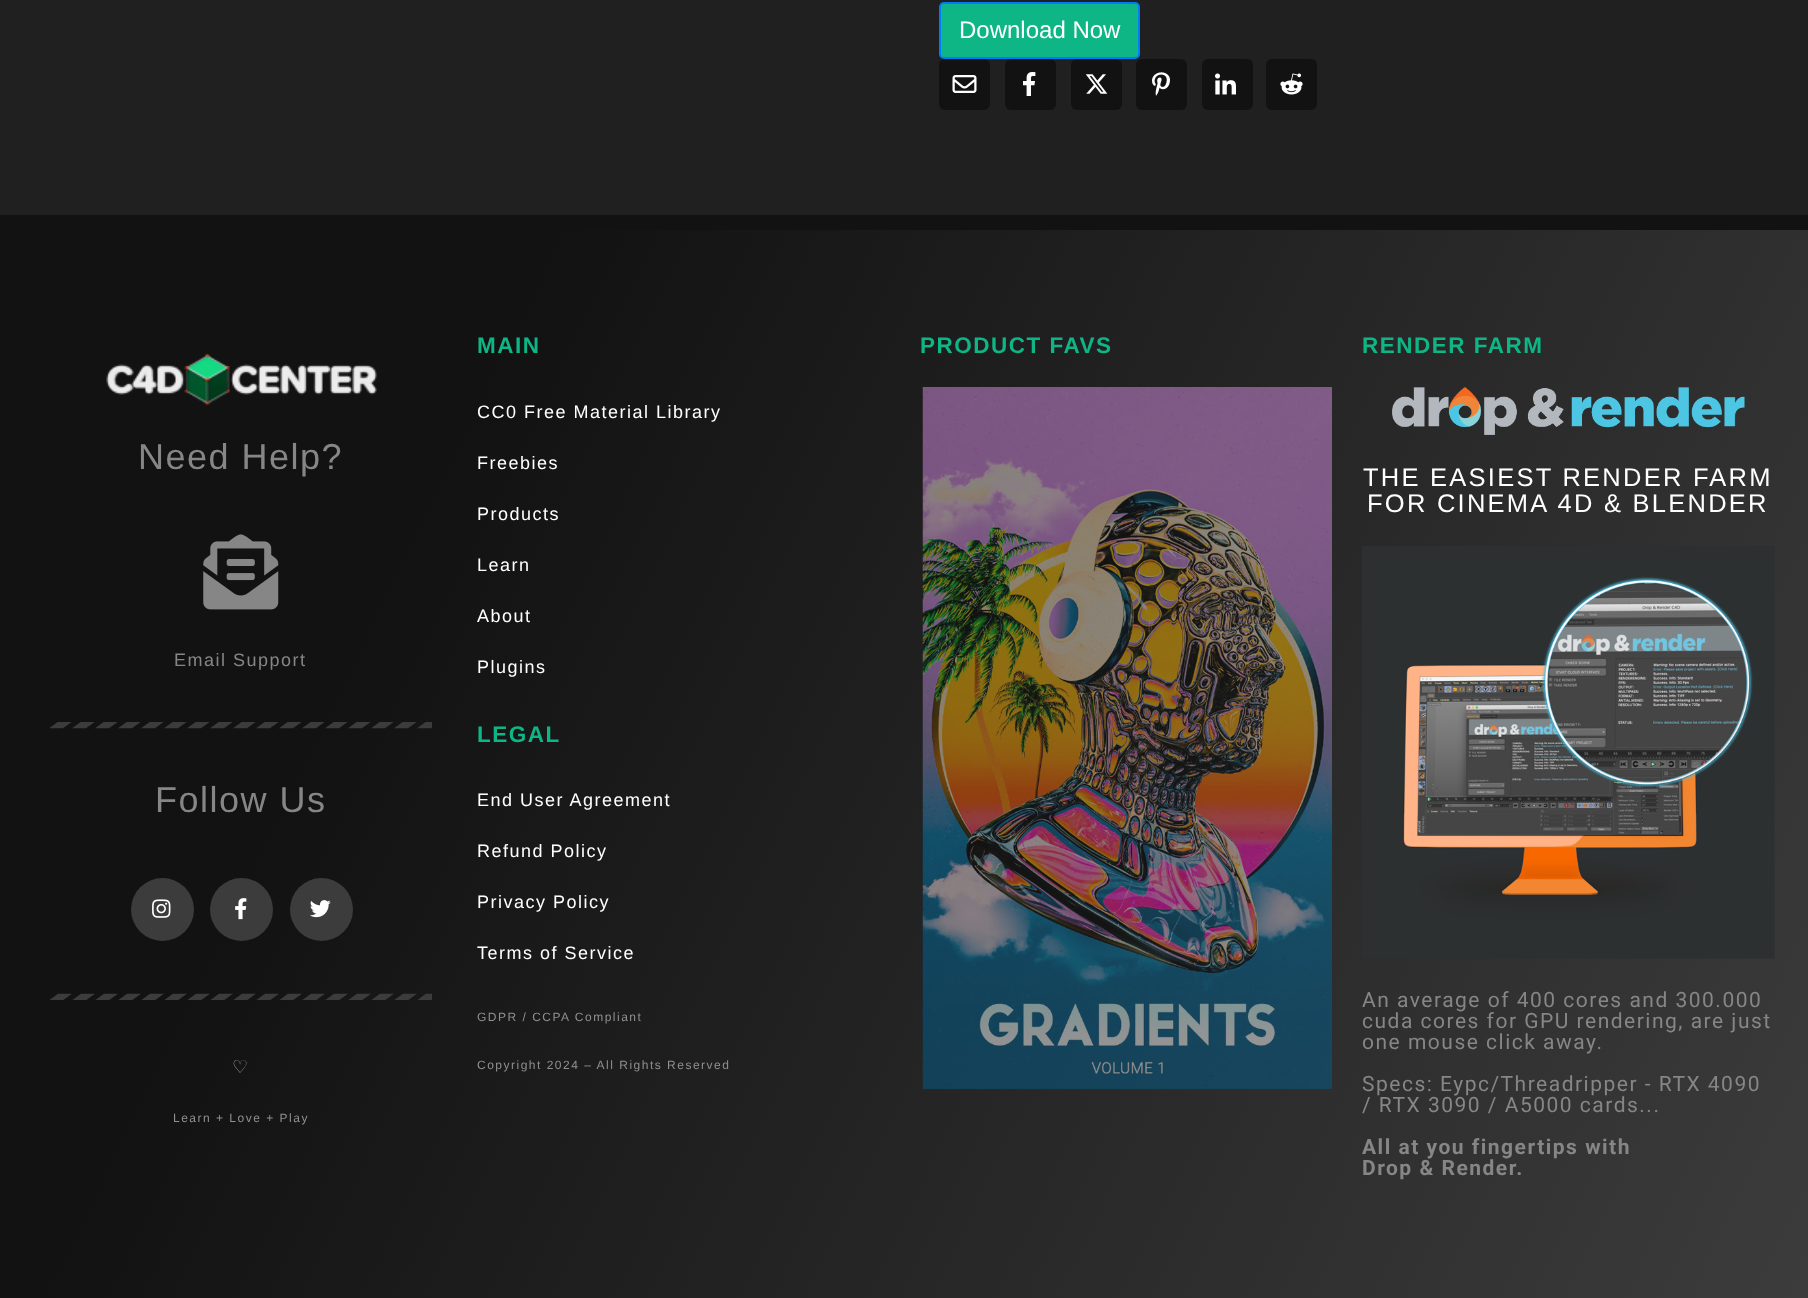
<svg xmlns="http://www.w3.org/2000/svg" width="1808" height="1298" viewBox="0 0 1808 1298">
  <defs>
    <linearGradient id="g1" gradientUnits="userSpaceOnUse" x1="-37" y1="305" x2="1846" y2="1223"><stop offset="0.24" stop-color="#121212"/><stop offset="1" stop-color="#3c3c3c"/></linearGradient>
  </defs>
  <rect width="100%" height="100%" fill="#ffffff"/>
  <rect x="0" y="0" width="1808" height="215" fill="#202020"/>
  <rect x="940" y="3" width="199" height="55" rx="4" fill="#0eb685" stroke="#007bff" stroke-width="2"/>
  <text x="959" y="38" font-family="Liberation Sans" font-size="24" fill="#ffffff">Download Now</text>
  <rect x="939" y="59" width="51" height="51" rx="6" fill="#121212"/>
  <image x="952" y="75" width="25" height="18" href="img1.png"/>
  <rect x="1005" y="59" width="51" height="51" rx="6" fill="#121212"/>
  <image x="1023" y="72" width="13" height="24" href="img2.png"/>
  <rect x="1071" y="59" width="51" height="51" rx="6" fill="#121212"/>
  <image x="1085" y="74" width="23" height="20" href="img3.png"/>
  <rect x="1136" y="59" width="51" height="51" rx="6" fill="#121212"/>
  <image x="1152" y="72" width="18" height="24" href="img4.png"/>
  <rect x="1202" y="59" width="51" height="51" rx="6" fill="#121212"/>
  <image x="1215" y="73" width="21" height="22" href="img5.png"/>
  <rect x="1266" y="59" width="51" height="51" rx="6" fill="#121212"/>
  <image x="1280" y="73" width="23" height="22" href="img6.png"/>
  <rect x="0" y="230" width="1808" height="1068" fill="url(#g1)"/>
  <rect x="0" y="215" width="1808" height="15" fill="#121212"/>
  <image x="106" y="353" width="271" height="53" href="img7.png"/>
  <text x="138" y="469" font-family="Liberation Sans" font-size="36" letter-spacing="1.5" fill="#868686">Need Help?</text>
  <image x="203" y="534" width="76" height="76" href="img8.png"/>
  <text x="174" y="666" font-family="Liberation Sans" font-size="18" letter-spacing="1.5" fill="#868686">Email Support</text>
  <image x="50" y="722" width="382" height="7" href="img9.png"/>
  <text x="155" y="812" font-family="Liberation Sans" font-size="36" letter-spacing="1.5" fill="#868686">Follow Us</text>
  <circle cx="162.5" cy="909.5" r="31.5" fill="#3c3c3c"/>
  <image x="152" y="899" width="19" height="19" href="img10.png"/>
  <circle cx="241.5" cy="909.5" r="31.5" fill="#3c3c3c"/>
  <image x="235" y="898" width="12" height="22" href="img11.png"/>
  <circle cx="321.5" cy="909.5" r="31.5" fill="#3c3c3c"/>
  <image x="310" y="900" width="21" height="18" href="img12.png"/>
  <image x="50" y="993" width="382" height="7" href="img13.png"/>
  <text x="232" y="1073" font-family="DejaVu Sans" font-size="18" letter-spacing="1.5" fill="#909090">♡</text>
  <text x="173" y="1122" font-family="Liberation Sans" font-size="12" letter-spacing="1.5" fill="#909090">Learn + Love + Play</text>
  <text x="477" y="353" font-family="Liberation Sans" font-size="22.5" font-weight="bold" letter-spacing="1.5" fill="#0eb685">MAIN</text>
  <text x="477" y="418" font-family="Liberation Sans" font-size="18" letter-spacing="1.5" fill="#ffffff">CC0 Free Material Library</text>
  <text x="477" y="469" font-family="Liberation Sans" font-size="18" letter-spacing="1.5" fill="#ffffff">Freebies</text>
  <text x="477" y="520" font-family="Liberation Sans" font-size="18" letter-spacing="1.5" fill="#ffffff">Products</text>
  <text x="477" y="571" font-family="Liberation Sans" font-size="18" letter-spacing="1.5" fill="#ffffff">Learn</text>
  <text x="477" y="622" font-family="Liberation Sans" font-size="18" letter-spacing="1.5" fill="#ffffff">About</text>
  <text x="477" y="673" font-family="Liberation Sans" font-size="18" letter-spacing="1.5" fill="#ffffff">Plugins</text>
  <text x="477" y="742" font-family="Liberation Sans" font-size="22.5" font-weight="bold" letter-spacing="1.5" fill="#0eb685">LEGAL</text>
  <text x="477" y="806" font-family="Liberation Sans" font-size="18" letter-spacing="1.5" fill="#ffffff">End User Agreement</text>
  <text x="477" y="857" font-family="Liberation Sans" font-size="18" letter-spacing="1.5" fill="#ffffff">Refund Policy</text>
  <text x="477" y="908" font-family="Liberation Sans" font-size="18" letter-spacing="1.5" fill="#ffffff">Privacy Policy</text>
  <text x="477" y="959" font-family="Liberation Sans" font-size="18" letter-spacing="1.5" fill="#ffffff">Terms of Service</text>
  <text x="477" y="1021" font-family="Liberation Sans" font-size="12" letter-spacing="1.5" fill="#909090">GDPR / CCPA Compliant</text>
  <text x="477" y="1069" font-family="Liberation Sans" font-size="12" letter-spacing="1.5" fill="#909090">Copyright 2024 – All Rights Reserved</text>
  <text x="920" y="353" font-family="Liberation Sans" font-size="22.5" font-weight="bold" letter-spacing="1.5" fill="#0eb685">PRODUCT FAVS</text>
  <image x="922" y="387" width="410" height="702" href="img14.png"/>
  <text x="1362" y="353" font-family="Liberation Sans" font-size="22.5" font-weight="bold" letter-spacing="1.5" fill="#0eb685">RENDER FARM</text>
  <image x="1392" y="387" width="353" height="48" href="img15.png"/>
  <text x="1363" y="486" font-family="Liberation Sans" font-size="25.5" letter-spacing="2.25" fill="#ffffff">THE EASIEST RENDER FARM</text>
  <text x="1367" y="512" font-family="Liberation Sans" font-size="25.5" letter-spacing="2.25" fill="#ffffff">FOR CINEMA 4D &amp; BLENDER</text>
  <image x="1362" y="546" width="413" height="413" href="img16.png"/>
  <text x="1362" y="1007" font-family="Roboto" font-size="21" letter-spacing="1.5" fill="#868686">An average of 400 cores and 300.000</text>
  <text x="1362" y="1028" font-family="Roboto" font-size="21" letter-spacing="1.5" fill="#868686">cuda cores for GPU rendering, are just</text>
  <text x="1362" y="1049" font-family="Roboto" font-size="21" letter-spacing="1.5" fill="#868686">one mouse click away.</text>
  <text x="1362" y="1091" font-family="Roboto" font-size="21" letter-spacing="1.5" fill="#868686">Specs: Eypc/Threadripper - RTX 4090</text>
  <text x="1362" y="1112" font-family="Roboto" font-size="21" letter-spacing="1.5" fill="#868686">/ RTX 3090 / A5000 cards...</text>
  <text x="1362" y="1154" font-family="Roboto" font-size="21" font-weight="bold" letter-spacing="1.5" fill="#868686">All at you fingertips with</text>
  <text x="1362" y="1175" font-family="Roboto" font-size="21" font-weight="bold" letter-spacing="1.5" fill="#868686">Drop &amp; Render.</text>
</svg>
